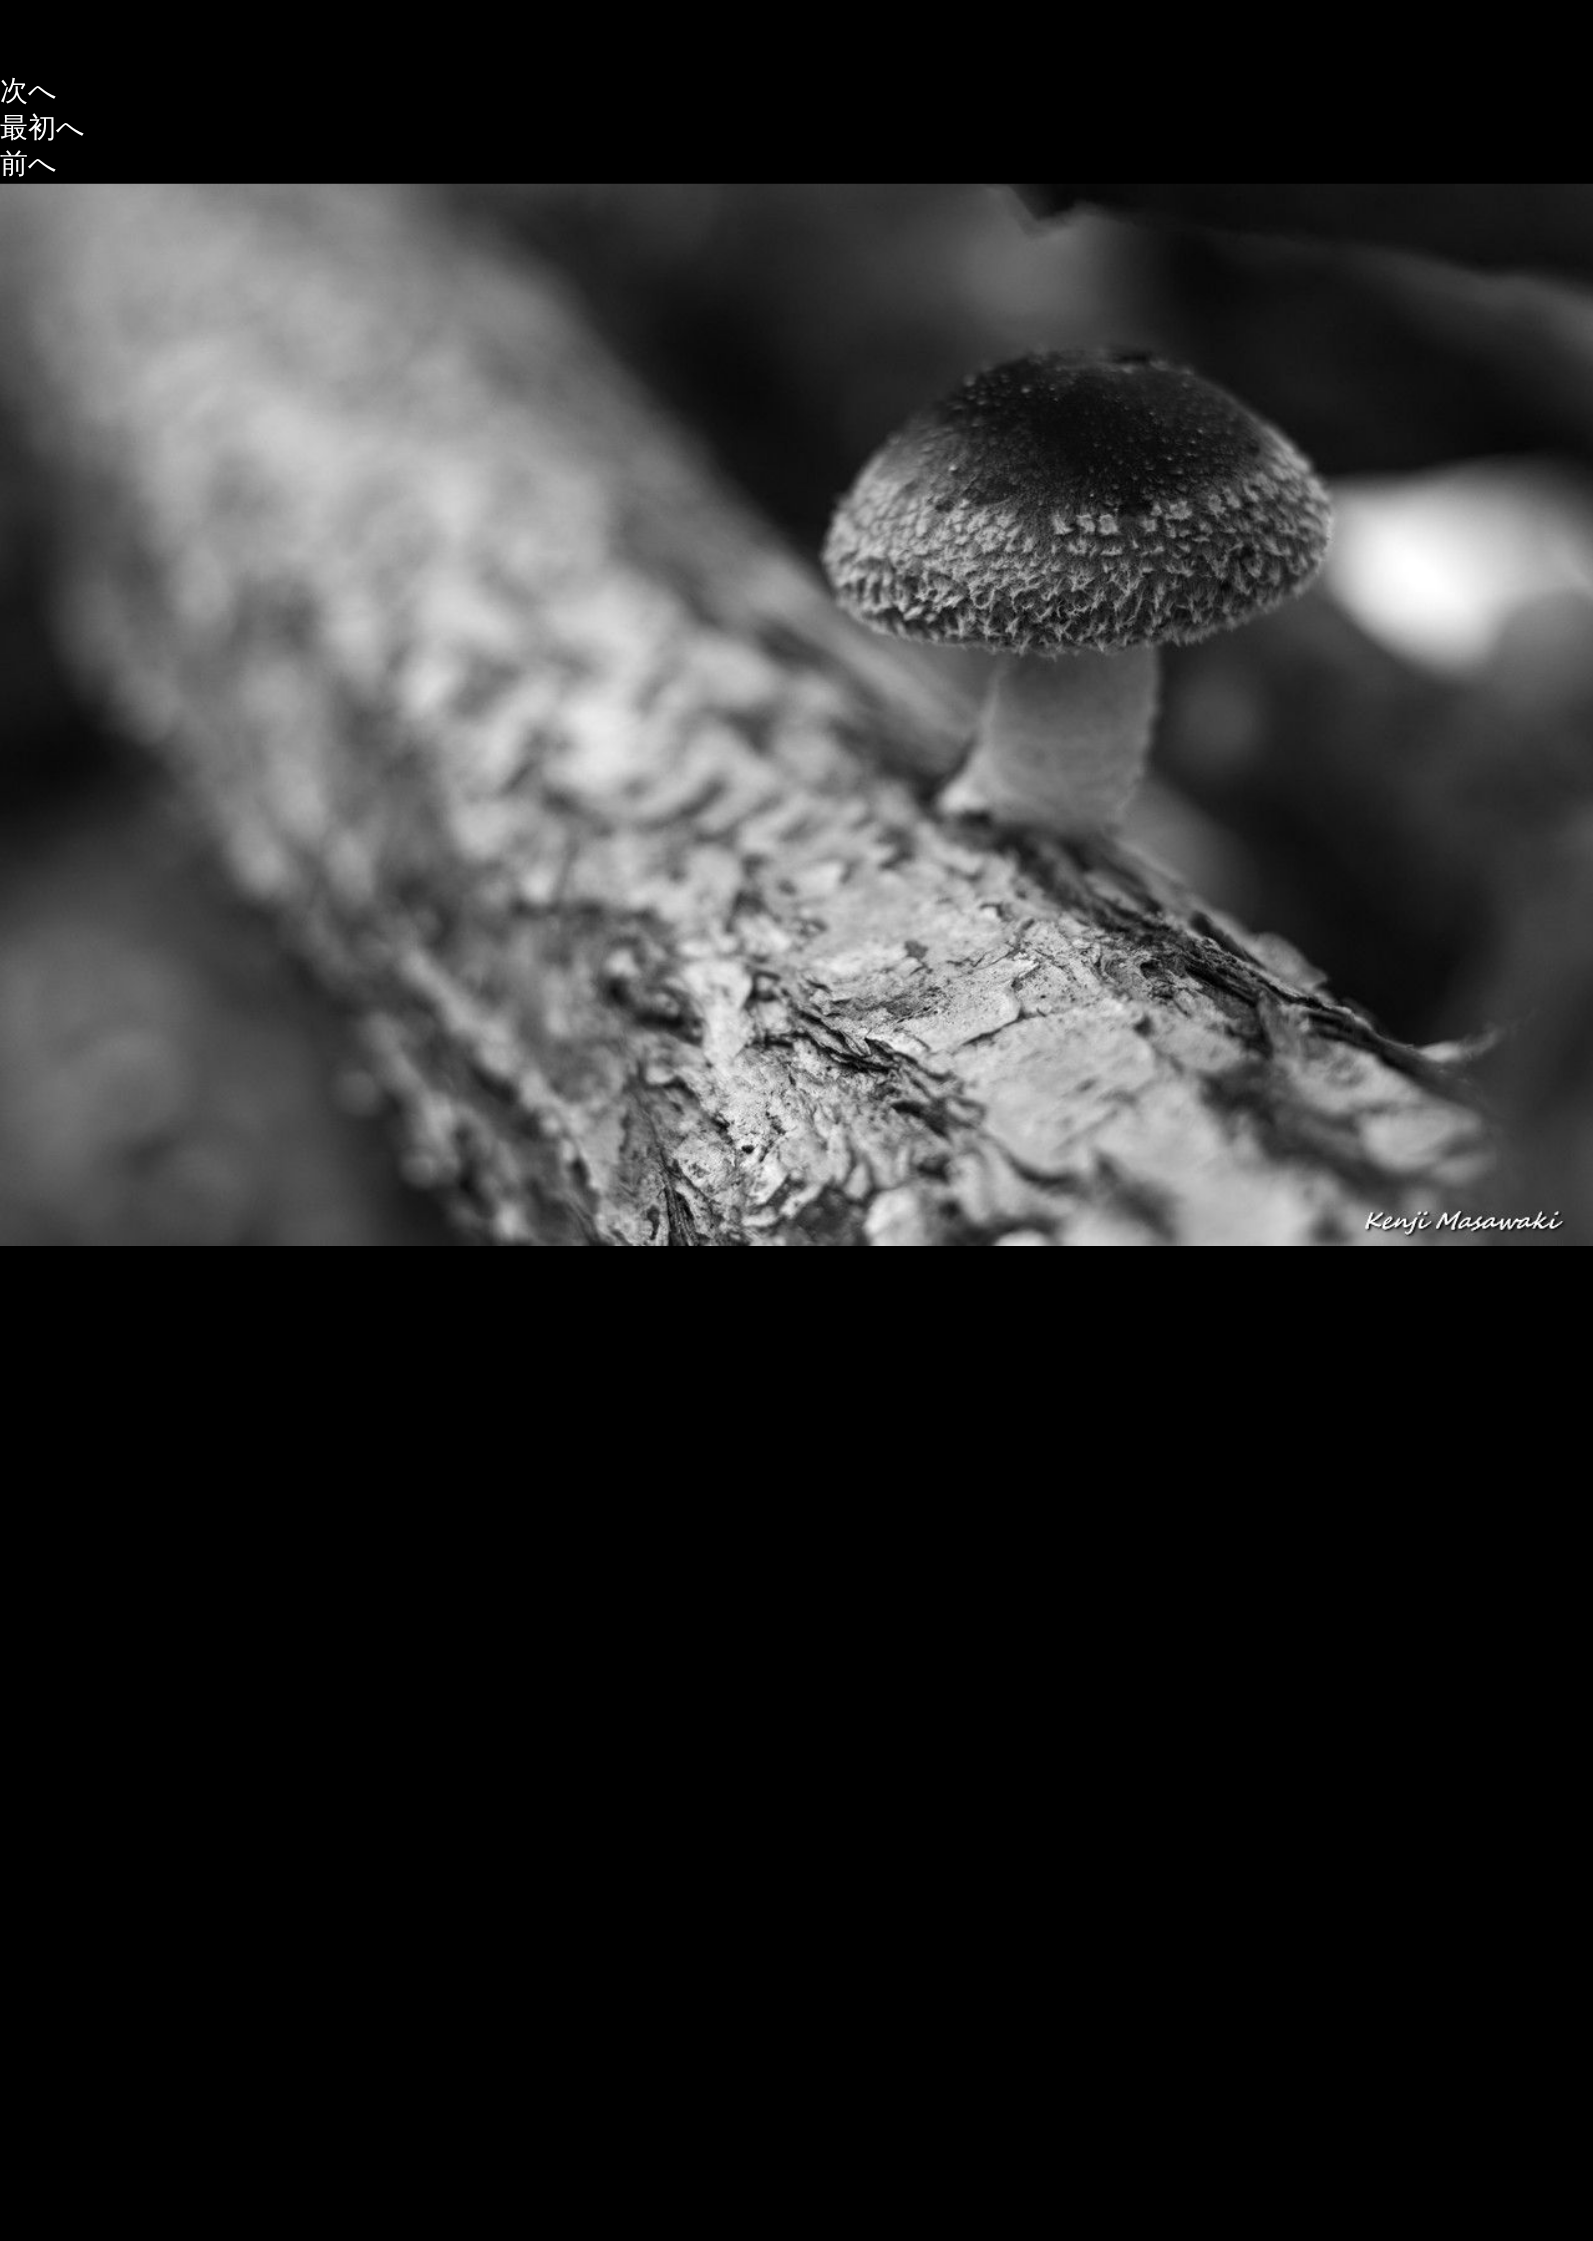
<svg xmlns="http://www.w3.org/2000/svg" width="1593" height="2241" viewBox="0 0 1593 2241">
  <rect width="100%" height="100%" fill="#000000"/>
  <text x="0" y="100" font-family="WenQuanYi Zen Hei" font-size="28" font-weight="500" fill="#ffffff">次へ</text>
  <text x="0" y="137" font-family="WenQuanYi Zen Hei" font-size="28" font-weight="500" fill="#ffffff">最初へ</text>
  <text x="0" y="173" font-family="WenQuanYi Zen Hei" font-size="28" font-weight="500" fill="#ffffff">前へ</text>
  <image x="0" y="183" width="1593" height="1063" href="img1.png"/>
</svg>
